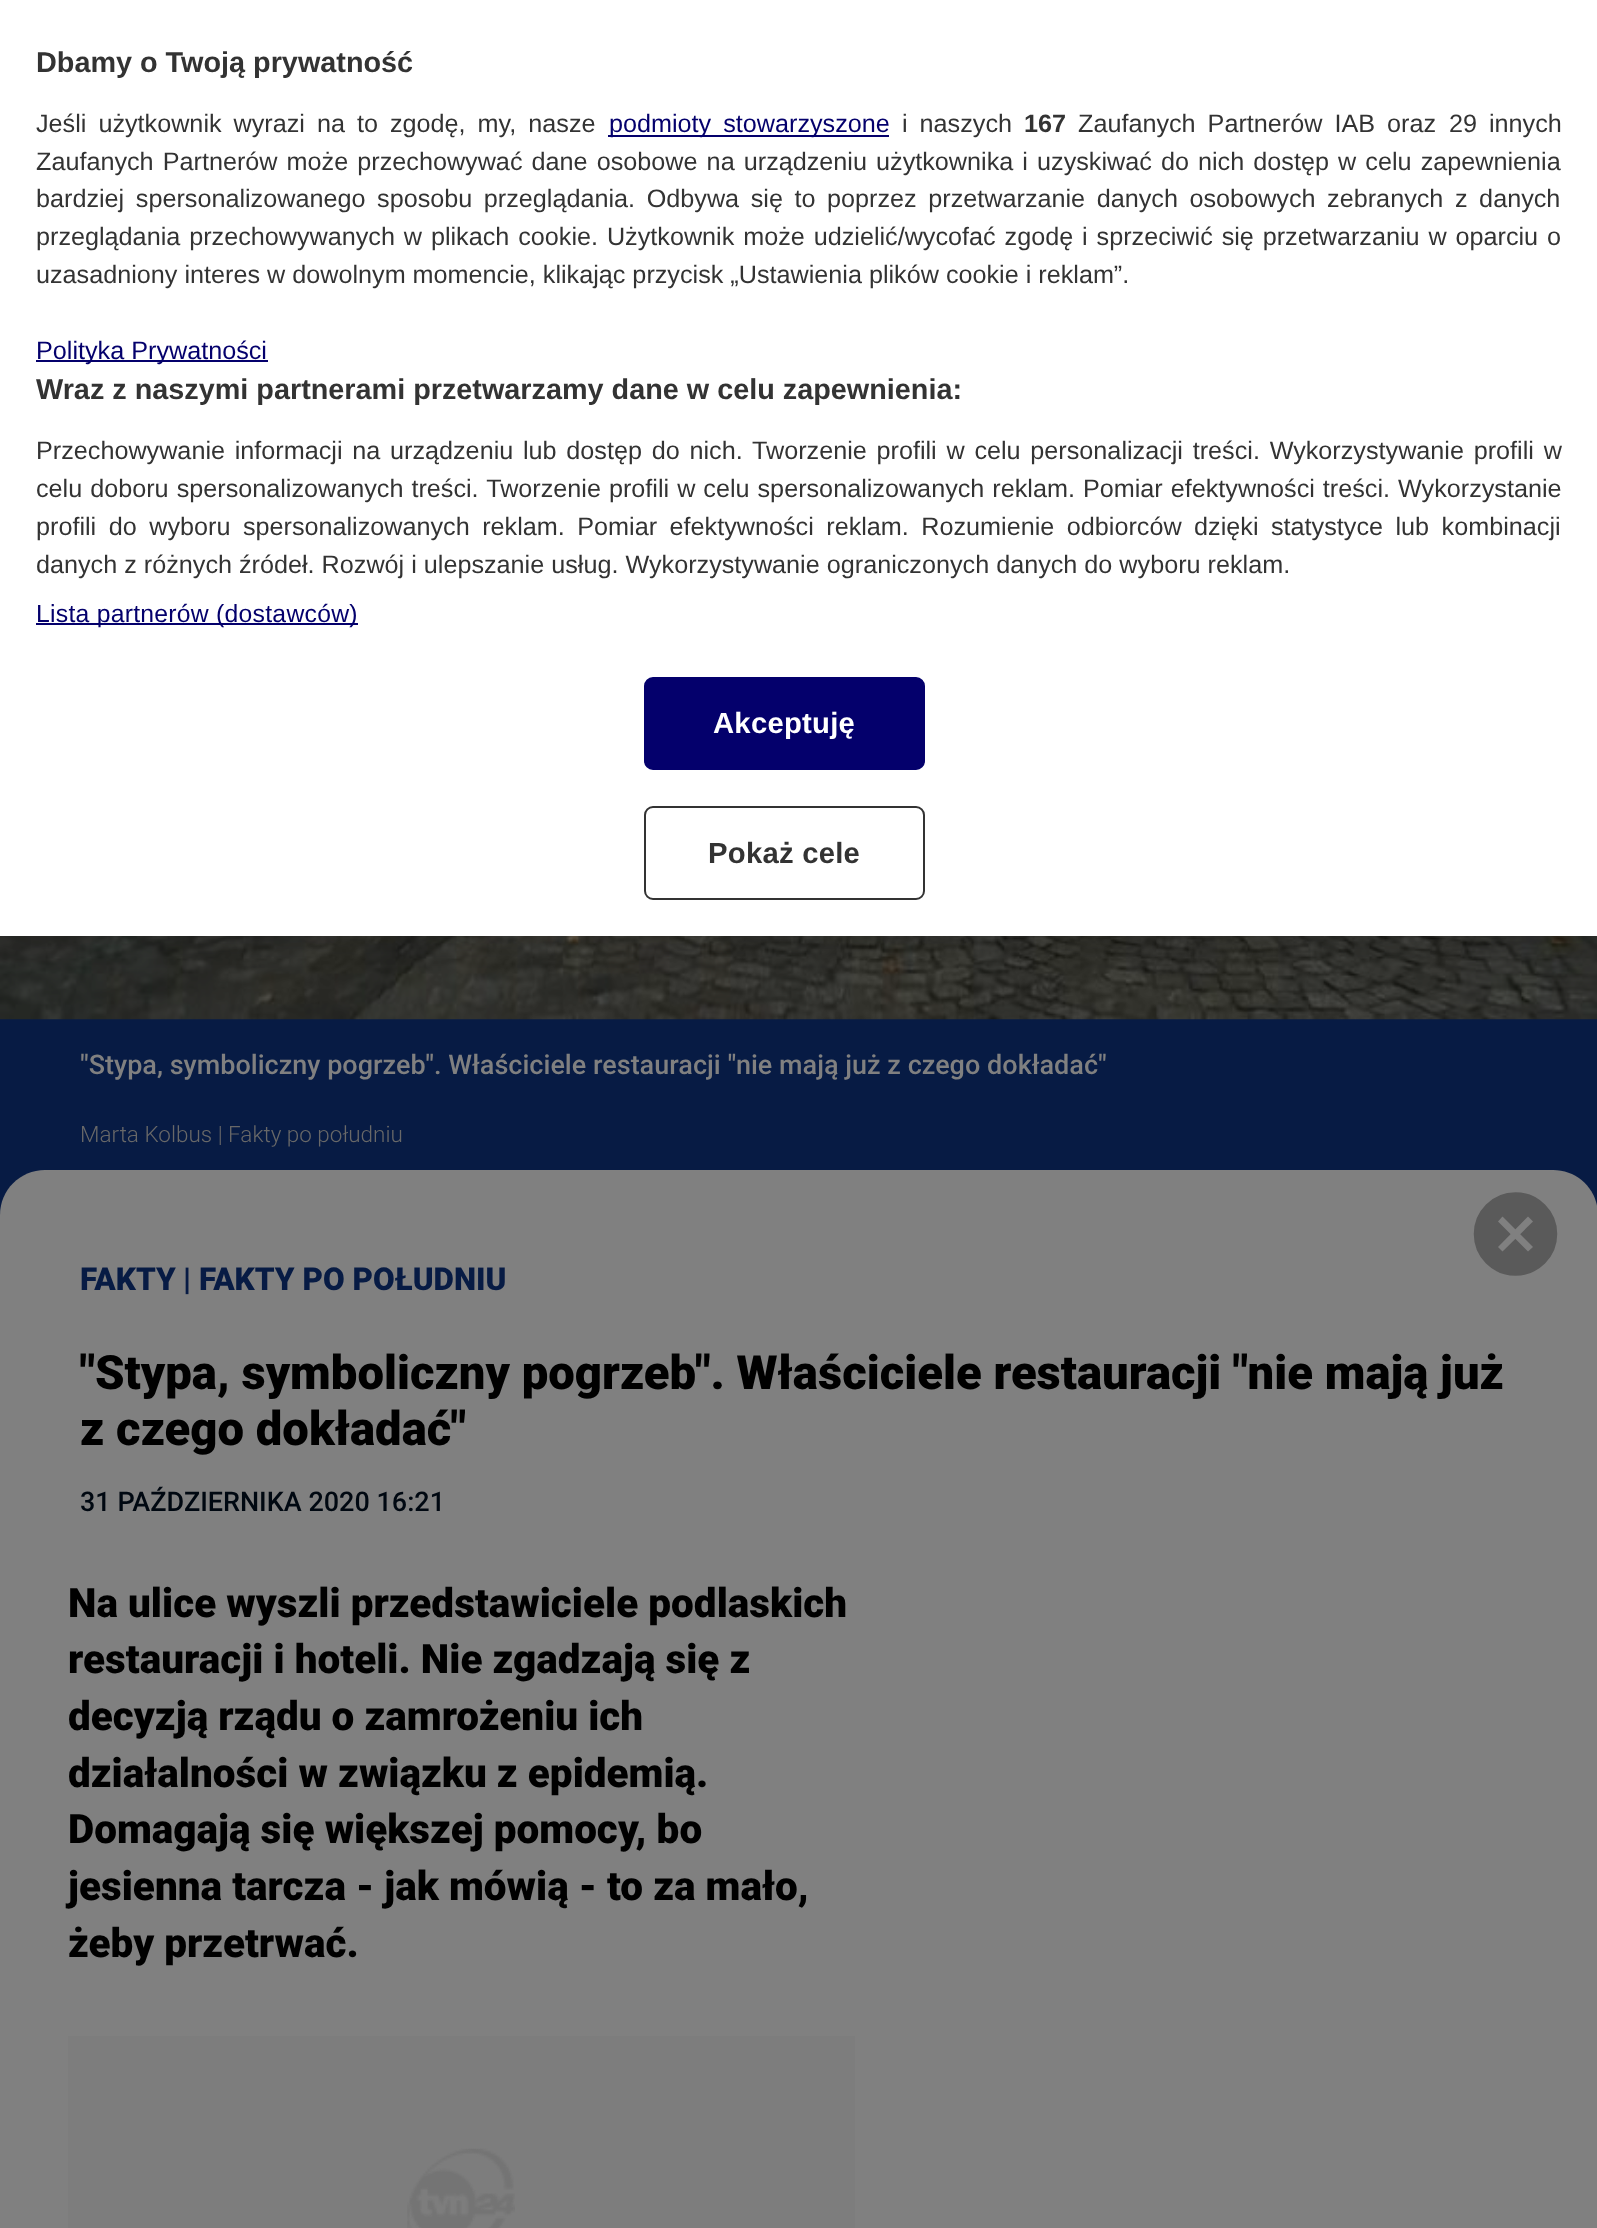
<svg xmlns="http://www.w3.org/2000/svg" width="1597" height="2228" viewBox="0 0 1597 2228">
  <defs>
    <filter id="blur1" x="-50%" y="-200%" width="200%" height="500%"><feGaussianBlur stdDeviation="20"/></filter>
    <clipPath id="clip1"><rect x="1469" y="1188" width="93" height="92"/></clipPath>
  </defs>
  <rect width="100%" height="100%" fill="#808080"/>
  <rect x="0" y="1019" width="1597" height="196" fill="#071b44"/>
  <image x="0" y="936" width="1597" height="84" href="img1.png"/>
  <rect x="0" y="0" width="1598" height="936" fill="#000000" fill-opacity="0.2" filter="url(#blur1)"/>
  <rect x="0" y="0" width="1597" height="936" fill="#ffffff"/>
  <text x="36" y="72" font-family="Liberation Sans" font-size="28.8" font-weight="bold" fill="#333333">Dbamy o Twoją prywatność</text>
  <text x="36" y="132" word-spacing="5" font-family="Liberation Sans" font-size="25.2" fill="#333333">Jeśli użytkownik wyrazi na to zgodę, my, nasze</text>
  <rect x="608" y="135" width="281" height="2" fill="#04006c"/>
  <text x="609" y="132" word-spacing="5" font-family="Liberation Sans" font-size="25.2" fill="#04006c">podmioty stowarzyszone</text>
  <text x="902" y="132" word-spacing="5" font-family="Liberation Sans" font-size="25.2" fill="#333333">i naszych</text>
  <text x="1024" y="132" font-family="Liberation Sans" font-size="25.2" font-weight="bold" fill="#333333">167</text>
  <text x="1078" y="132" word-spacing="5" font-family="Liberation Sans" font-size="25.2" fill="#333333">Zaufanych Partnerów IAB oraz</text>
  <text x="1449" y="132" font-family="Liberation Sans" font-size="25.2" fill="#333333">29</text>
  <text x="1489" y="132" font-family="Liberation Sans" font-size="25.2" fill="#333333">innych</text>
  <text x="36" y="170" word-spacing="2.1" font-family="Liberation Sans" font-size="25.2" fill="#333333">Zaufanych Partnerów może przechowywać dane osobowe na urządzeniu użytkownika i uzyskiwać do nich dostęp w celu zapewnienia</text>
  <text x="36" y="207" word-spacing="4.6" font-family="Liberation Sans" font-size="25.2" fill="#333333">bardziej spersonalizowanego sposobu przeglądania. Odbywa się to poprzez przetwarzanie danych osobowych zebranych z danych</text>
  <text x="36" y="245" word-spacing="1.9" font-family="Liberation Sans" font-size="25.2" fill="#333333">przeglądania przechowywanych w plikach cookie. Użytkownik może udzielić/wycofać zgodę i sprzeciwić się przetwarzaniu w oparciu o</text>
  <text x="36" y="283" font-family="Liberation Sans" font-size="25.2" fill="#333333">uzasadniony interes w dowolnym momencie, klikając przycisk „Ustawienia plików cookie i reklam”.</text>
  <rect x="36" y="360" width="232" height="2" fill="#04006c"/>
  <text x="36" y="359" font-family="Liberation Sans" font-size="25.2" fill="#04006c">Polityka Prywatności</text>
  <text x="36" y="399" font-family="Liberation Sans" font-size="28.8" font-weight="bold" fill="#333333">Wraz z naszymi partnerami przetwarzamy dane w celu zapewnienia:</text>
  <text x="36" y="459" word-spacing="2.75" font-family="Liberation Sans" font-size="25.2" fill="#333333">Przechowywanie informacji na urządzeniu lub dostęp do nich. Tworzenie profili w celu personalizacji treści. Wykorzystywanie profili w</text>
  <text x="36" y="497" word-spacing="1" font-family="Liberation Sans" font-size="25.2" fill="#333333">celu doboru spersonalizowanych treści. Tworzenie profili w celu spersonalizowanych reklam. Pomiar efektywności treści. Wykorzystanie</text>
  <text x="36" y="535" word-spacing="5.5" font-family="Liberation Sans" font-size="25.2" fill="#333333">profili do wyboru spersonalizowanych reklam. Pomiar efektywności reklam. Rozumienie odbiorców dzięki statystyce lub kombinacji</text>
  <text x="36" y="573" font-family="Liberation Sans" font-size="25.2" fill="#333333">danych z różnych źródeł. Rozwój i ulepszanie usług. Wykorzystywanie ograniczonych danych do wyboru reklam.</text>
  <rect x="36" y="623" width="322" height="2" fill="#04006c"/>
  <text x="36" y="622" font-family="Liberation Sans" font-size="24.75" letter-spacing="0.25" fill="#04006c">Lista partnerów (dostawców)</text>
  <rect x="645" y="678" width="279" height="91" rx="8" fill="#04006c" stroke="#04006c" stroke-width="2"/>
  <text x="713" y="733" font-family="Liberation Sans" font-size="29.25" font-weight="bold" letter-spacing="0.25" fill="#ffffff">Akceptuję</text>
  <rect x="645" y="807" width="279" height="92" rx="8" fill="none" stroke="#333333" stroke-width="2"/>
  <text x="708" y="863" font-family="Liberation Sans" font-size="29.25" font-weight="bold" letter-spacing="0.25" fill="#333333">Pokaż cele</text>
  <text x="80" y="1074" font-family="Roboto" font-size="27" font-weight="500" fill="#808080">"Stypa, symboliczny pogrzeb". Właściciele restauracji "nie mają już z czego dokładać"</text>
  <text x="80" y="1142" font-family="Roboto" font-size="22.5" font-weight="300" fill="#686868">Marta Kolbus | Fakty po południu</text>
  <path d="M45 1170H1553C1578 1170 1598 1190 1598 1215V1220H0V1215C0 1190 20 1170 45 1170Z" fill="#808080"/>
  <text x="80" y="1290" font-family="Roboto" font-size="31.5" font-weight="900" fill="#071b44">FAKTY</text>
  <text x="183" y="1290" font-family="Roboto" font-size="31.5" font-weight="900" fill="#071b44">| FAKTY PO POŁUDNIU</text>
  <circle cx="1515.5" cy="1234" r="44" fill="#5a5a5a"/>
  <g clip-path="url(#clip1)">
    <circle cx="1515.5" cy="1234" r="44" fill="none" stroke="#808080" stroke-width="4.5"/>
  </g>
  <path d="M1528 1216.5L1533 1221.5L1502.5 1251.5L1498 1247Z" fill="#808080"/>
  <path d="M1533 1247L1528 1251.5L1498 1221.5L1502.5 1216.5Z" fill="#808080"/>
  <text x="80" y="1389" font-family="Roboto" font-size="47.25" font-weight="900" fill="#000000">"Stypa, symboliczny pogrzeb". Właściciele restauracji "nie mają już</text>
  <text x="80" y="1445" font-family="Roboto" font-size="47.25" font-weight="900" fill="#000000">z czego dokładać"</text>
  <text x="80" y="1511" font-family="Roboto" font-size="27" font-weight="500" fill="#000811">31 PAŹDZIERNIKA 2020 16:21</text>
  <text x="68" y="1617" font-family="Roboto" font-size="40.5" font-weight="900" fill="#000000">Na ulice wyszli przedstawiciele podlaskich</text>
  <text x="68" y="1673" font-family="Roboto" font-size="40.5" font-weight="900" fill="#000000">restauracji i hoteli. Nie zgadzają się z</text>
  <text x="68" y="1730" font-family="Roboto" font-size="40.5" font-weight="900" fill="#000000">decyzją rządu o zamrożeniu ich</text>
  <text x="68" y="1787" font-family="Roboto" font-size="40.5" font-weight="900" fill="#000000">działalności w związku z epidemią.</text>
  <text x="68" y="1843" font-family="Roboto" font-size="40.5" font-weight="900" fill="#000000">Domagają się większej pomocy, bo</text>
  <text x="68" y="1900" font-family="Roboto" font-size="40.5" font-weight="900" fill="#000000">jesienna tarcza - jak mówią - to za mało,</text>
  <text x="68" y="1957" font-family="Roboto" font-size="40.5" font-weight="900" fill="#000000">żeby przetrwać.</text>
  <rect x="68" y="2036" width="787" height="192" fill="#7d7d7d"/>
  <image x="407" y="2148" width="108" height="80" href="img2.png"/>
</svg>
